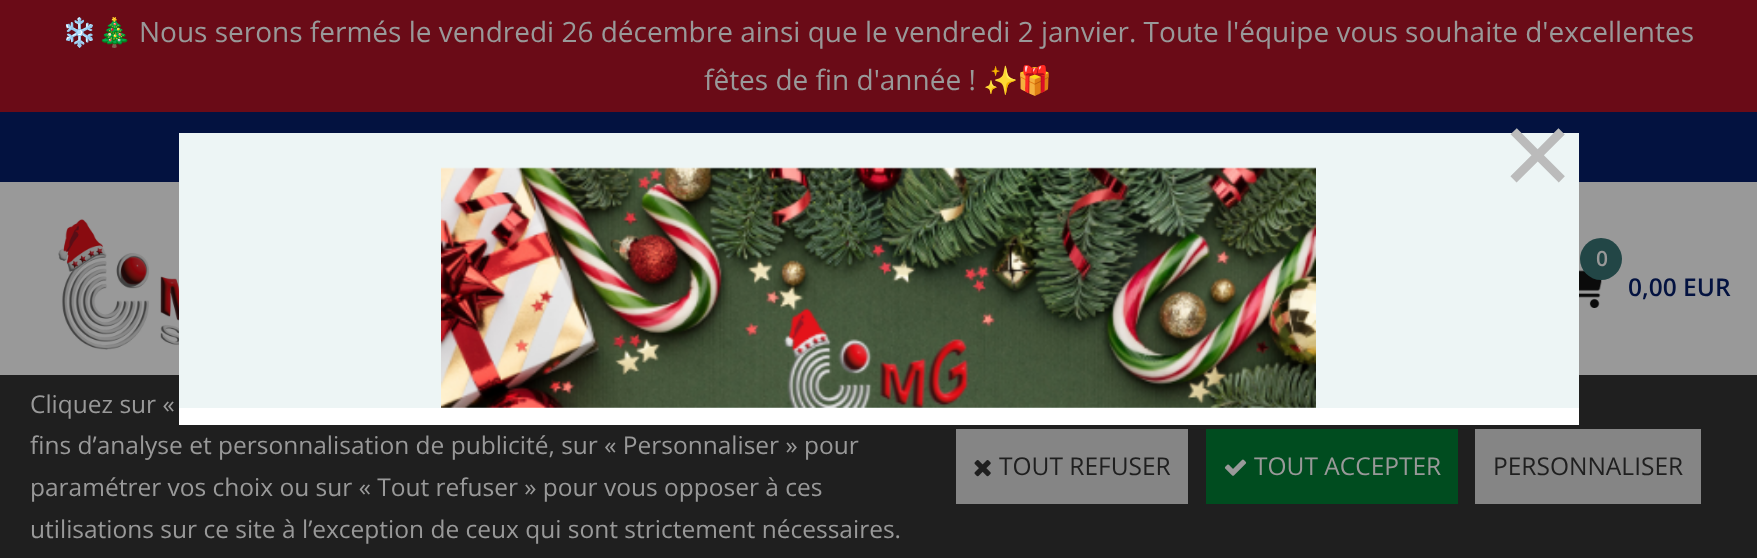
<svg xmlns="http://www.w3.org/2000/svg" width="1757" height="558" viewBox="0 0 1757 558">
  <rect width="100%" height="100%" fill="#999999"/>
  <rect x="0" y="0" width="1757" height="112" fill="#6a0b17"/>
  <text x="62" y="42" font-family="Noto Color Emoji" font-size="28" font-weight="bold" fill="#999999">❄️</text>
  <text x="97" y="42" font-family="Noto Color Emoji" font-size="28" fill="#999999">🎄</text>
  <text x="139" y="42" font-family="Open Sans" font-size="28" fill="#999999">Nous serons fermés le vendredi 26 décembre ainsi que le vendredi 2 janvier. Toute l'équipe vous souhaite d'excellentes</text>
  <text x="704" y="90" font-family="Open Sans" font-size="28" fill="#999999">fêtes de fin d'année !</text>
  <text x="983" y="90" font-family="Noto Color Emoji" font-size="28" fill="#999999">✨🎁</text>
  <rect x="0" y="375" width="1757" height="183" fill="#1f1f1f"/>
  <rect x="179" y="408" width="1400" height="17" fill="#ffffff"/>
  <rect x="0" y="112" width="1757" height="70" fill="#031240"/>
  <rect x="179" y="133" width="1400" height="275" fill="#edf5f5"/>
  <text x="1502" y="196" font-family="Liberation Sans" font-size="122" fill="#bbbbbb">×</text>
  <image x="441" y="167" width="875" height="241" href="img1.png"/>
  <image x="58" y="219" width="121" height="131" href="img2.png"/>
  <image x="1579" y="270" width="23" height="38" href="img3.png"/>
  <circle cx="1601" cy="259" r="21" fill="#224646"/>
  <text x="1596" y="266" font-family="Open Sans" font-size="21" font-weight="600" fill="#999999">0</text>
  <text x="1628" y="296" font-family="Open Sans" font-size="24.5" font-weight="600" fill="#031240">0,00 EUR</text>
  <text x="30" y="413" font-family="Open Sans" font-size="24.5" fill="#999999">Cliquez sur «</text>
  <text x="30" y="454" font-family="Open Sans" font-size="24.5" fill="#999999">fins d’analyse et personnalisation de publicité, sur « Personnaliser » pour</text>
  <text x="30" y="496" font-family="Open Sans" font-size="24.5" fill="#999999">paramétrer vos choix ou sur « Tout refuser » pour vous opposer à ces</text>
  <text x="30" y="538" font-family="Open Sans" font-size="24.5" fill="#999999">utilisations sur ce site à l’exception de ceux qui sont strictement nécessaires.</text>
  <rect x="956" y="429" width="232" height="75" fill="#858585"/>
  <image x="974" y="460" width="17" height="17" href="img4.png"/>
  <text x="999" y="475" font-family="Open Sans" font-size="24.5" fill="#1f1f1f">TOUT REFUSER</text>
  <rect x="1206" y="429" width="252" height="75" fill="#004c1f"/>
  <image x="1224" y="459" width="23" height="17" href="img5.png"/>
  <text x="1254" y="475" font-family="Open Sans" font-size="24.5" fill="#999999">TOUT ACCEPTER</text>
  <rect x="1475" y="429" width="226" height="75" fill="#858585"/>
  <text x="1493" y="475" font-family="Open Sans" font-size="24.5" fill="#1f1f1f">PERSONNALISER</text>
</svg>
